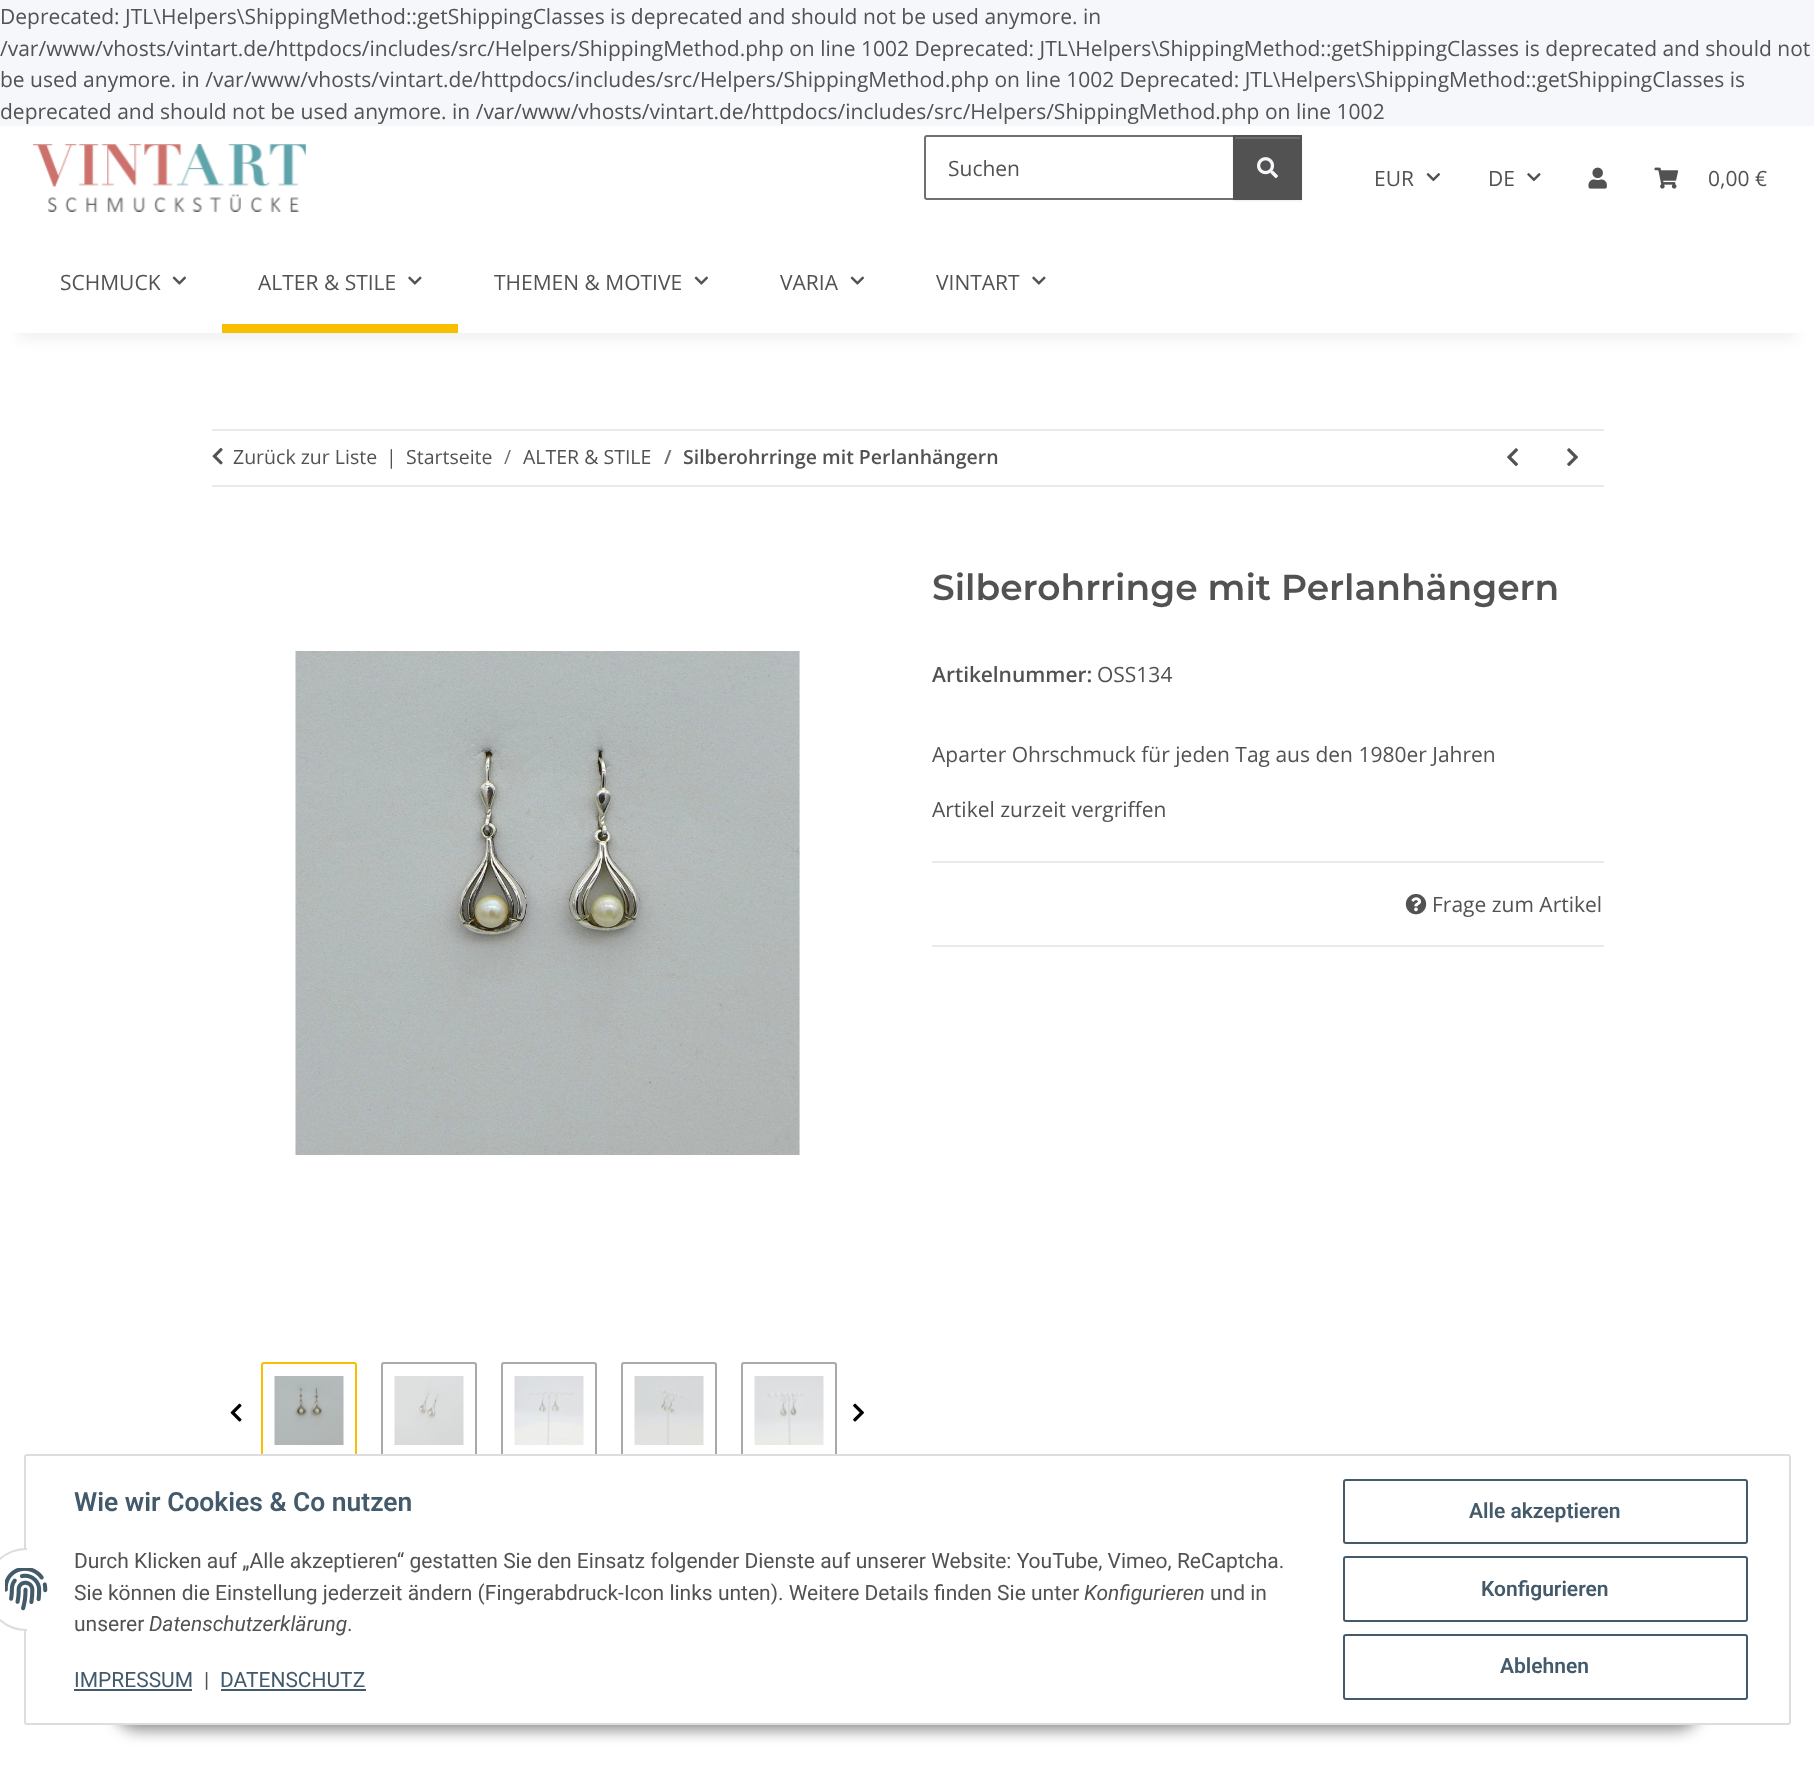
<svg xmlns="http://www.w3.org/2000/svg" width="1814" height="1772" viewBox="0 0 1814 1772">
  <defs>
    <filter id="blur1" x="-50%" y="-200%" width="200%" height="500%"><feGaussianBlur stdDeviation="7"/></filter>
    <filter id="blur2" x="-50%" y="-200%" width="200%" height="500%"><feGaussianBlur stdDeviation="1"/></filter>
    <filter id="blur3" x="-50%" y="-200%" width="200%" height="500%"><feGaussianBlur stdDeviation="7.5"/></filter>
  </defs>
  <rect width="100%" height="100%" fill="#f5f7fa"/>
  <text x="0" y="24" font-family="Open Sans" font-size="21" fill="#525252">Deprecated: JTL\Helpers\ShippingMethod::getShippingClasses is deprecated and should not be used anymore. in</text>
  <text x="0" y="56" font-family="Open Sans" font-size="21" fill="#525252">/var/www/vhosts/vintart.de/httpdocs/includes/src/Helpers/ShippingMethod.php on line 1002 Deprecated: JTL\Helpers\ShippingMethod::getShippingClasses is deprecated and should not</text>
  <text x="0" y="87" font-family="Open Sans" font-size="21" fill="#525252">be used anymore. in /var/www/vhosts/vintart.de/httpdocs/includes/src/Helpers/ShippingMethod.php on line 1002 Deprecated: JTL\Helpers\ShippingMethod::getShippingClasses is</text>
  <text x="0" y="119" font-family="Open Sans" font-size="21" fill="#525252">deprecated and should not be used anymore. in /var/www/vhosts/vintart.de/httpdocs/includes/src/Helpers/ShippingMethod.php on line 1002</text>
  <rect x="0" y="333" width="1814" height="1439" fill="#ffffff"/>
  <rect x="18" y="168" width="1779" height="171" fill="#000000" fill-opacity="0.06" filter="url(#blur1)"/>
  <rect x="0" y="126" width="1814" height="207" fill="#ffffff"/>
  <image x="33" y="144" width="273" height="68" href="img1.png"/>
  <path d="M927 136H1234V199H927C926 199 925 198 925 197V138C925 137 926 136 927 136Z" fill="none" stroke="#707070" stroke-width="2"/>
  <text x="948" y="176" font-family="Open Sans" font-size="21" fill="#525252">Suchen</text>
  <rect x="1233" y="137" width="69" height="64" fill="#000000" fill-opacity="0.07" filter="url(#blur2)"/>
  <rect x="1235" y="139" width="65" height="59" fill="#525252"/>
  <rect x="1235" y="137" width="66" height="2" fill="#6c6c6c"/>
  <rect x="1234" y="136" width="67" height="63" fill="none" stroke="#525252" stroke-width="2"/>
  <image x="1257" y="157" width="21" height="22" href="img2.png"/>
  <text x="1374" y="186" font-family="Open Sans" font-size="21" fill="#525252">EUR</text>
  <image x="1426" y="173" width="15" height="9" href="img3.png"/>
  <text x="1488" y="186" font-family="Open Sans" font-size="21" fill="#525252">DE</text>
  <image x="1527" y="173" width="14" height="9" href="img4.png"/>
  <image x="1588" y="167" width="19" height="22" href="img5.png"/>
  <image x="1654" y="167" width="25" height="22" href="img6.png"/>
  <text x="1708" y="186" font-family="Open Sans" font-size="21" fill="#525252">0,00 €</text>
  <text x="60" y="290" font-family="Open Sans" font-size="21" fill="#525252">SCHMUCK</text>
  <image x="172" y="276" width="14" height="9" href="img7.png"/>
  <text x="258" y="290" font-family="Open Sans" font-size="21" fill="#525252">ALTER &amp; STILE</text>
  <image x="408" y="276" width="14" height="9" href="img8.png"/>
  <rect x="222" y="324" width="236" height="9" fill="#f8bf00"/>
  <text x="494" y="290" font-family="Open Sans" font-size="21" fill="#525252">THEMEN &amp; MOTIVE</text>
  <image x="694" y="276" width="14" height="9" href="img7.png"/>
  <text x="780" y="290" font-family="Open Sans" font-size="21" fill="#525252">VARIA</text>
  <image x="850" y="276" width="14" height="9" href="img7.png"/>
  <text x="936" y="290" font-family="Open Sans" font-size="21" fill="#525252">VINTART</text>
  <image x="1032" y="276" width="14" height="9" href="img8.png"/>
  <rect x="212" y="429" width="1392" height="2" fill="#ebebeb"/>
  <rect x="212" y="485" width="1392" height="2" fill="#ebebeb"/>
  <image x="212" y="447" width="11" height="18" href="img9.png"/>
  <text x="233" y="464" font-family="Open Sans" font-size="19.5" fill="#525252">Zurück zur Liste</text>
  <text x="386" y="464" font-family="Open Sans" font-size="19.5" fill="#525252">|</text>
  <text x="406" y="464" font-family="Open Sans" font-size="19.5" fill="#525252">Startseite</text>
  <text x="504" y="464" font-family="Open Sans" font-size="19.5" fill="#707070">/</text>
  <text x="523" y="464" font-family="Open Sans" font-size="19.5" fill="#525252">ALTER &amp; STILE</text>
  <text x="664" y="464" font-family="Open Sans" font-size="19.5" font-weight="600" fill="#707070">/</text>
  <text x="683" y="464" font-family="Open Sans" font-size="19.5" font-weight="600" fill="#525252">Silberohrringe mit Perlanhängern</text>
  <image x="1507" y="448" width="11" height="18" href="img10.png"/>
  <image x="1567" y="448" width="11" height="18" href="img11.png"/>
  <image x="295" y="651" width="505" height="504" href="img12.png"/>
  <image x="230" y="1403" width="12" height="19" href="img13.png"/>
  <rect x="262" y="1363" width="94" height="94" rx="2" fill="none" stroke="#f8bf00" stroke-width="2"/>
  <image x="274" y="1376" width="70" height="69" href="img14.png"/>
  <rect x="382" y="1363" width="94" height="94" rx="2" fill="none" stroke="#a9a9a9" stroke-width="2"/>
  <image x="394" y="1376" width="70" height="69" href="img15.png"/>
  <rect x="502" y="1363" width="94" height="94" rx="2" fill="none" stroke="#a9a9a9" stroke-width="2"/>
  <image x="514" y="1376" width="70" height="69" href="img16.png"/>
  <rect x="622" y="1363" width="94" height="94" rx="2" fill="none" stroke="#a9a9a9" stroke-width="2"/>
  <image x="634" y="1376" width="70" height="69" href="img17.png"/>
  <rect x="742" y="1363" width="94" height="94" rx="2" fill="none" stroke="#a9a9a9" stroke-width="2"/>
  <image x="754" y="1376" width="70" height="69" href="img18.png"/>
  <image x="853" y="1403" width="11" height="19" href="img19.png"/>
  <text x="932" y="600" font-family="Montserrat" font-size="36" font-weight="600" fill="#525252">Silberohrringe mit Perlanhängern</text>
  <text x="932" y="682" font-family="Open Sans" font-size="21" font-weight="600" fill="#525252">Artikelnummer:</text>
  <text x="1097" y="682" font-family="Open Sans" font-size="21" fill="#525252">OSS134</text>
  <text x="932" y="762" font-family="Open Sans" font-size="21" fill="#525252">Aparter Ohrschmuck für jeden Tag aus den 1980er Jahren</text>
  <text x="932" y="817" font-family="Open Sans" font-size="21" fill="#525252">Artikel zurzeit vergriffen</text>
  <rect x="932" y="861" width="672" height="2" fill="#ebebeb"/>
  <rect x="932" y="945" width="672" height="2" fill="#ebebeb"/>
  <image x="1405" y="894" width="22" height="21" href="img20.png"/>
  <text x="1432" y="912" font-family="Open Sans" font-size="21" fill="#525252">Frage zum Artikel</text>
  <rect x="114" y="1682" width="1587" height="48" rx="24" fill="#000000" fill-opacity="0.45" filter="url(#blur3)"/>
  <rect x="25" y="1455" width="1765" height="269" rx="2" fill="#ffffff" stroke="#dddddd" stroke-width="2"/>
  <circle cx="26.5" cy="1589.5" r="40.5" fill="#ffffff" stroke="#dddddd" stroke-width="2"/>
  <rect x="27" y="1548" width="41" height="83" fill="#ffffff"/>
  <image x="5" y="1568" width="43" height="43" href="img21.png"/>
  <text x="74" y="1511" font-family="Roboto" font-size="26.4" font-weight="600" fill="#435a6b">Wie wir Cookies &amp; Co nutzen</text>
  <text x="74" y="1568" font-family="Roboto" font-size="21" fill="#525252">Durch Klicken auf „Alle akzeptieren“ gestatten Sie den Einsatz folgender Dienste auf unserer Website: YouTube, Vimeo, ReCaptcha.</text>
  <text x="74" y="1600" font-family="Roboto" font-size="21" fill="#525252">Sie können die Einstellung jederzeit ändern (Fingerabdruck-Icon links unten). Weitere Details finden Sie unter</text>
  <text x="1084" y="1600" font-family="Roboto" font-size="21" font-style="italic" fill="#525252">Konfigurieren</text>
  <text x="1210" y="1600" font-family="Roboto" font-size="21" fill="#525252">und in</text>
  <text x="74" y="1631" font-family="Roboto" font-size="21" fill="#525252">unserer</text>
  <text x="149" y="1631" font-family="Roboto" font-size="21" font-style="italic" fill="#525252">Datenschutzerklärung</text>
  <text x="347" y="1631" font-family="Roboto" font-size="21" fill="#525252">.</text>
  <text x="74" y="1687" font-family="Roboto" font-size="21" fill="#435a6b">IMPRESSUM</text>
  <rect x="74" y="1689" width="118" height="2" fill="#435a6b"/>
  <text x="204" y="1687" font-family="Roboto" font-size="21" fill="#525252">|</text>
  <text x="220" y="1687" font-family="Roboto" font-size="21" fill="#435a6b">DATENSCHUTZ</text>
  <rect x="221" y="1689" width="145" height="2" fill="#435a6b"/>
  <rect x="1344" y="1480" width="403" height="63" rx="2" fill="none" stroke="#435a6b" stroke-width="2"/>
  <text x="1469" y="1518" font-family="Roboto" font-size="21" font-weight="600" fill="#435a6b">Alle akzeptieren</text>
  <rect x="1344" y="1557" width="403" height="64" rx="2" fill="none" stroke="#435a6b" stroke-width="2"/>
  <text x="1481" y="1596" font-family="Roboto" font-size="21" font-weight="600" fill="#435a6b">Konfigurieren</text>
  <rect x="1344" y="1635" width="403" height="64" rx="2" fill="none" stroke="#435a6b" stroke-width="2"/>
  <text x="1500" y="1673" font-family="Roboto" font-size="21" font-weight="600" fill="#435a6b">Ablehnen</text>
</svg>
